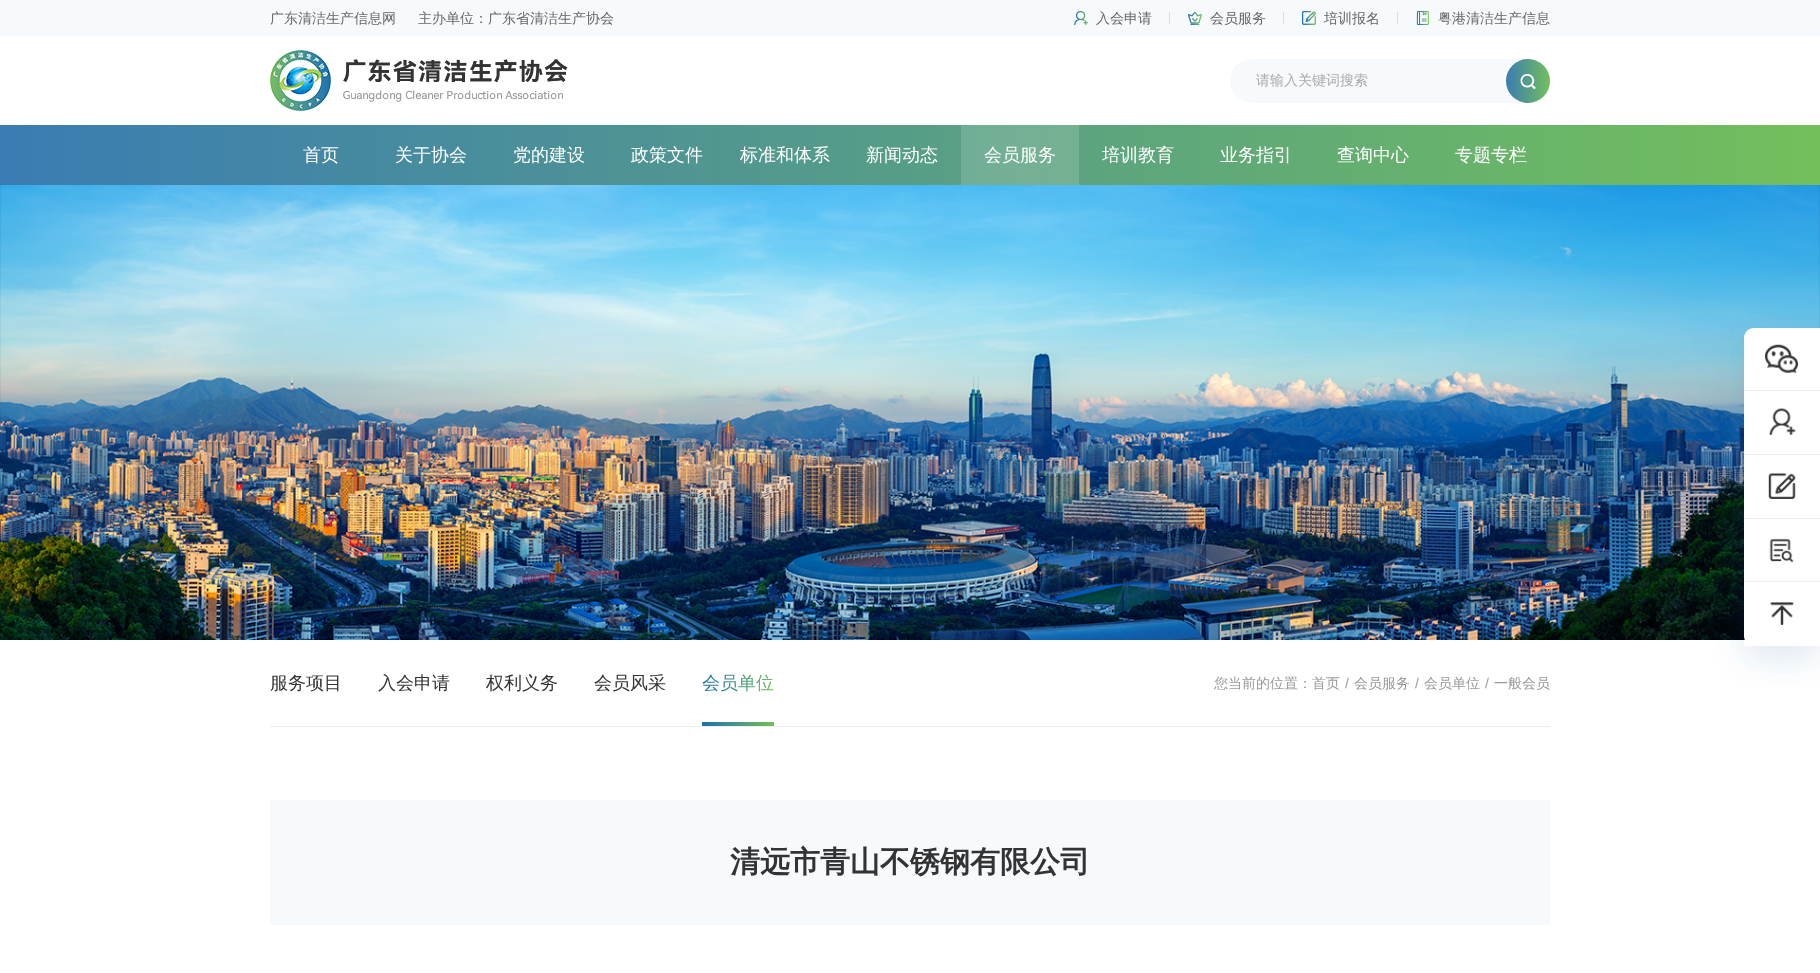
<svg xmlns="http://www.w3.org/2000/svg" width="1820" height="973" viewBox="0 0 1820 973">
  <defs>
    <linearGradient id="g1" gradientUnits="userSpaceOnUse" x1="774" y1="683" x2="702" y2="683"><stop offset="0" stop-color="#73bf5b"/><stop offset="1" stop-color="#2070ad"/></linearGradient>
    <linearGradient id="g2" gradientUnits="userSpaceOnUse" x1="1506" y1="81" x2="1550" y2="81"><stop offset="0" stop-color="#3a7cb3"/><stop offset="1" stop-color="#73bf5b"/></linearGradient>
    <linearGradient id="g3" gradientUnits="userSpaceOnUse" x1="0" y1="155" x2="1820" y2="155"><stop offset="0" stop-color="#3a7cb3"/><stop offset="1" stop-color="#73bf5b"/></linearGradient>
    <linearGradient id="g4" gradientUnits="userSpaceOnUse" x1="0" y1="155" x2="1820" y2="155"><stop offset="0" stop-color="#5890be"/><stop offset="1" stop-color="#88c974"/></linearGradient>
    <linearGradient id="g5" gradientUnits="userSpaceOnUse" x1="702" y1="724" x2="774" y2="724"><stop offset="0" stop-color="#2070ad"/><stop offset="1" stop-color="#73bf5b"/></linearGradient>
    <clipPath id="clip1"><path d="M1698 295H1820V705H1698ZM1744 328H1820V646H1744Z" clip-rule="evenodd"/></clipPath>
    <filter id="blur1" x="-50%" y="-200%" width="200%" height="500%"><feGaussianBlur stdDeviation="15"/></filter>
  </defs>
  <rect width="100%" height="100%" fill="#ffffff"/>
  <rect x="0" y="0" width="1820" height="36" fill="#f6fafd"/>
  <text x="270" y="23" font-family="WenQuanYi Zen Hei" font-size="14" font-weight="500" fill="#666666">广东清洁生产信息网</text>
  <text x="418" y="23" font-family="WenQuanYi Zen Hei" font-size="14" font-weight="500" fill="#666666">主办单位：广东省清洁生产协会</text>
  <image x="1074" y="11" width="14" height="14" href="img1.png"/>
  <text x="1096" y="23" font-family="WenQuanYi Zen Hei" font-size="14" font-weight="500" fill="#666666">入会申请</text>
  <rect x="1169" y="12" width="1" height="12" fill="#dddddd"/>
  <image x="1188" y="12" width="14" height="13" href="img2.png"/>
  <text x="1210" y="23" font-family="WenQuanYi Zen Hei" font-size="14" font-weight="500" fill="#666666">会员服务</text>
  <rect x="1283" y="12" width="1" height="12" fill="#dddddd"/>
  <image x="1302" y="11" width="14" height="14" href="img3.png"/>
  <text x="1324" y="23" font-family="WenQuanYi Zen Hei" font-size="14" font-weight="500" fill="#666666">培训报名</text>
  <rect x="1397" y="12" width="1" height="12" fill="#dddddd"/>
  <image x="1416" y="11" width="13" height="14" href="img4.png"/>
  <text x="1438" y="23" font-family="WenQuanYi Zen Hei" font-size="14" font-weight="500" fill="#666666">粤港清洁生产信息</text>
  <image x="270" y="50" width="298" height="61" href="img5.png"/>
  <rect x="1230" y="59" width="320" height="44" rx="22" fill="#f6fafd"/>
  <text x="1256" y="85" font-family="WenQuanYi Zen Hei" font-size="14" font-weight="500" fill="#aaaaaa">请输入关键词搜索</text>
  <circle cx="1528" cy="81" r="22" fill="url(#g2)"/>
  <image x="1520" y="74" width="16" height="15" href="img6.png"/>
  <rect x="0" y="125" width="1820" height="60" fill="url(#g3)"/>
  <rect x="961" y="125" width="118" height="60" fill="url(#g4)"/>
  <text x="303" y="161" font-family="WenQuanYi Zen Hei" font-size="18" font-weight="500" fill="#ffffff">首页</text>
  <text x="395" y="161" font-family="WenQuanYi Zen Hei" font-size="18" font-weight="500" fill="#ffffff">关于协会</text>
  <text x="513" y="161" font-family="WenQuanYi Zen Hei" font-size="18" font-weight="500" fill="#ffffff">党的建设</text>
  <text x="631" y="161" font-family="WenQuanYi Zen Hei" font-size="18" font-weight="500" fill="#ffffff">政策文件</text>
  <text x="740" y="161" font-family="WenQuanYi Zen Hei" font-size="18" font-weight="500" fill="#ffffff">标准和体系</text>
  <text x="866" y="161" font-family="WenQuanYi Zen Hei" font-size="18" font-weight="500" fill="#ffffff">新闻动态</text>
  <text x="984" y="161" font-family="WenQuanYi Zen Hei" font-size="18" font-weight="500" fill="#ffffff">会员服务</text>
  <text x="1102" y="161" font-family="WenQuanYi Zen Hei" font-size="18" font-weight="500" fill="#ffffff">培训教育</text>
  <text x="1220" y="161" font-family="WenQuanYi Zen Hei" font-size="18" font-weight="500" fill="#ffffff">业务指引</text>
  <text x="1337" y="161" font-family="WenQuanYi Zen Hei" font-size="18" font-weight="500" fill="#ffffff">查询中心</text>
  <text x="1455" y="161" font-family="WenQuanYi Zen Hei" font-size="18" font-weight="500" fill="#ffffff">专题专栏</text>
  <image x="0" y="185" width="1820" height="455" href="img7.png"/>
  <rect x="270" y="726" width="1280" height="1" fill="#eeeeee"/>
  <text x="270" y="689" font-family="WenQuanYi Zen Hei" font-size="18" font-weight="500" fill="#333333">服务项目</text>
  <text x="378" y="689" font-family="WenQuanYi Zen Hei" font-size="18" font-weight="500" fill="#333333">入会申请</text>
  <text x="486" y="689" font-family="WenQuanYi Zen Hei" font-size="18" font-weight="500" fill="#333333">权利义务</text>
  <text x="594" y="689" font-family="WenQuanYi Zen Hei" font-size="18" font-weight="500" fill="#333333">会员风采</text>
  <text x="702" y="689" font-family="WenQuanYi Zen Hei" font-size="18" font-weight="500" fill="url(#g1)">会员单位</text>
  <rect x="702" y="722" width="72" height="4" fill="url(#g5)"/>
  <text x="1214" y="688" font-family="WenQuanYi Zen Hei" font-size="14" font-weight="500" fill="#999999">您当前的位置：首页</text>
  <text x="1345" y="688" font-family="Liberation Sans" font-size="14" fill="#999999">/</text>
  <text x="1354" y="688" font-family="WenQuanYi Zen Hei" font-size="14" font-weight="500" fill="#999999">会员服务</text>
  <text x="1415" y="688" font-family="Liberation Sans" font-size="14" fill="#999999">/</text>
  <text x="1424" y="688" font-family="WenQuanYi Zen Hei" font-size="14" font-weight="500" fill="#999999">会员单位</text>
  <text x="1485" y="688" font-family="Liberation Sans" font-size="14" fill="#999999">/</text>
  <text x="1494" y="688" font-family="WenQuanYi Zen Hei" font-size="14" font-weight="500" fill="#999999">一般会员</text>
  <g clip-path="url(#clip1)">
    <rect x="1744" y="341" width="76" height="318" fill="#2070ad" fill-opacity="0.15" filter="url(#blur1)"/>
  </g>
  <path d="M1754 328H1820V391H1744V338C1744 332.5 1748.5 328 1754 328Z" fill="#ffffff"/>
  <image x="1765" y="344" width="33" height="29" href="img8.png"/>
  <rect x="1744" y="390" width="76" height="1" fill="#eeeeee"/>
  <rect x="1744" y="391" width="76" height="63" fill="#ffffff"/>
  <image x="1769" y="408" width="27" height="27" href="img9.png"/>
  <rect x="1744" y="454" width="76" height="1" fill="#eeeeee"/>
  <rect x="1744" y="455" width="76" height="63" fill="#ffffff"/>
  <image x="1768" y="472" width="28" height="27" href="img10.png"/>
  <rect x="1744" y="518" width="76" height="1" fill="#eeeeee"/>
  <rect x="1744" y="519" width="76" height="62" fill="#ffffff"/>
  <image x="1769" y="538" width="25" height="25" href="img11.png"/>
  <rect x="1744" y="581" width="76" height="1" fill="#eeeeee"/>
  <path d="M1744 582H1820V646H1754C1748.5 646 1744 641.5 1744 636Z" fill="#ffffff"/>
  <image x="1770" y="602" width="24" height="24" href="img12.png"/>
  <rect x="270" y="800" width="1280" height="125" fill="#f6fafd"/>
  <text x="730" y="872" font-family="WenQuanYi Zen Hei" font-size="30" font-weight="bold" fill="#333333">清远市青山不锈钢有限公司</text>
</svg>
